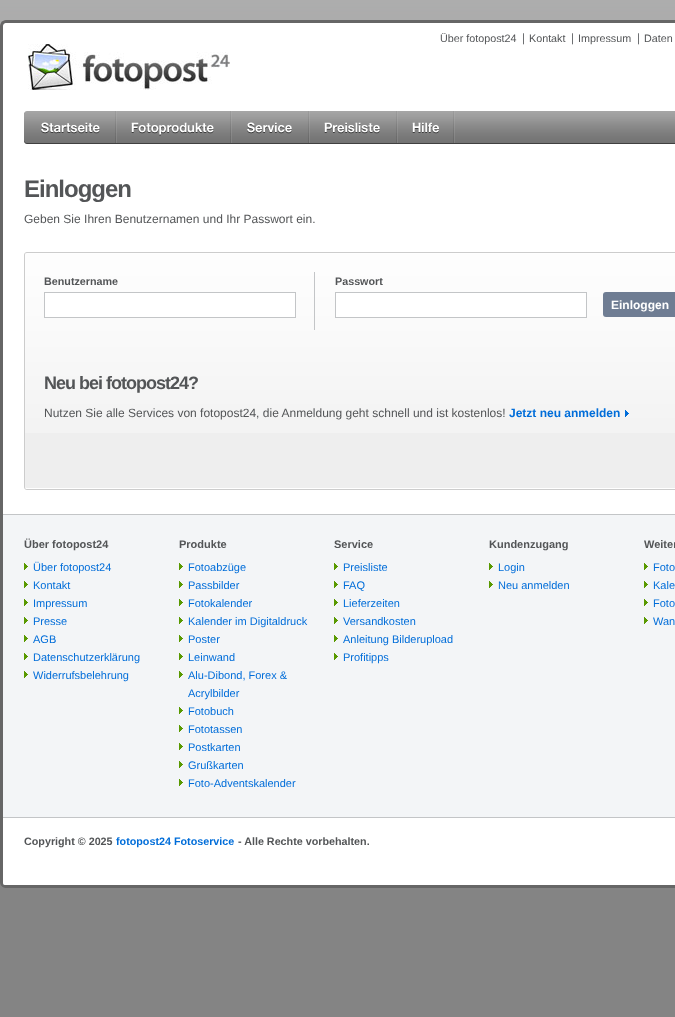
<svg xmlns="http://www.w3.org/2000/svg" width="675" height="1017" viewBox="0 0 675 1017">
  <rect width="100%" height="100%" fill="#848484"/>
  <image x="0" y="0" width="675" height="16" href="img1.png"/>
  <rect x="3" y="26" width="672" height="488" fill="#ffffff"/>
  <rect x="0" y="26" width="3" height="792" fill="#666666"/>
  <image x="0" y="16" width="675" height="10" href="img2.png"/>
  <text x="440" y="42" font-family="Liberation Sans" font-size="10.75" fill="#535557">Über fotopost24</text>
  <image x="523" y="33" width="1" height="12" href="img3.png"/>
  <text x="529" y="42" font-family="Liberation Sans" font-size="10.75" fill="#535557">Kontakt</text>
  <image x="572" y="33" width="1" height="12" href="img3.png"/>
  <text x="578" y="42" font-family="Liberation Sans" font-size="10.75" fill="#535557">Impressum</text>
  <image x="638" y="33" width="1" height="12" href="img3.png"/>
  <text x="644" y="42" font-family="Liberation Sans" font-size="10.75" fill="#535557">Daten</text>
  <image x="28" y="44" width="202" height="46" href="img4.png"/>
  <image x="116" y="111" width="559" height="33" href="img5.png"/>
  <image x="24" y="111" width="92" height="33" href="img6.png"/>
  <image x="116" y="111" width="115" height="32" href="img7.png"/>
  <image x="231" y="111" width="78" height="32" href="img8.png"/>
  <image x="309" y="111" width="88" height="32" href="img9.png"/>
  <image x="397" y="111" width="58" height="32" href="img10.png"/>
  <text x="24" y="197" font-family="Liberation Sans" font-size="24" font-weight="bold" letter-spacing="-1" fill="#535557">Einloggen</text>
  <text x="24" y="223" font-family="Liberation Sans" font-size="12" fill="#535557">Geben Sie Ihren Benutzernamen und Ihr Passwort ein.</text>
  <image x="24" y="433" width="651" height="57" href="img11.png"/>
  <image x="24" y="252" width="651" height="181" href="img12.png"/>
  <text x="44" y="285" font-family="Liberation Sans" font-size="10.75" font-weight="bold" fill="#535557">Benutzername</text>
  <rect x="44.5" y="292.5" width="251" height="25" fill="#ffffff" stroke="#c3c5c7"/>
  <rect x="314" y="272" width="1" height="58" fill="#c3c5c7"/>
  <text x="335" y="285" font-family="Liberation Sans" font-size="10.75" font-weight="bold" fill="#535557">Passwort</text>
  <rect x="335.5" y="292.5" width="251" height="25" fill="#ffffff" stroke="#c3c5c7"/>
  <rect x="603" y="292" width="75" height="25" rx="3" fill="#6f7d93"/>
  <text x="611" y="309" font-family="Liberation Sans" font-size="12" font-weight="bold" fill="#ffffff">Einloggen</text>
  <text x="44" y="389" font-family="Liberation Sans" font-size="18" font-weight="bold" letter-spacing="-1" fill="#535557">Neu bei fotopost24?</text>
  <text x="44" y="417" font-family="Liberation Sans" font-size="12" fill="#535557">Nutzen Sie alle Services von fotopost24, die Anmeldung geht schnell und ist kostenlos!</text>
  <text x="509" y="417" font-family="Liberation Sans" font-size="12" font-weight="bold" fill="#006dd9">Jetzt neu anmelden</text>
  <image x="625" y="410" width="4" height="7" href="img13.png"/>
  <rect x="3" y="515" width="672" height="302" fill="#f3f5f7"/>
  <rect x="3" y="514" width="672" height="1" fill="#c3c5c7"/>
  <rect x="3" y="817" width="672" height="1" fill="#c3c5c7"/>
  <text x="24" y="548" font-family="Liberation Sans" font-size="11" font-weight="bold" fill="#535557">Über fotopost24</text>
  <image x="24" y="563" width="4" height="7" href="img14.png"/>
  <text x="33" y="571" font-family="Liberation Sans" font-size="11" fill="#006dd9">Über fotopost24</text>
  <image x="24" y="581" width="4" height="7" href="img14.png"/>
  <text x="33" y="589" font-family="Liberation Sans" font-size="11" fill="#006dd9">Kontakt</text>
  <image x="24" y="599" width="4" height="7" href="img14.png"/>
  <text x="33" y="607" font-family="Liberation Sans" font-size="11" fill="#006dd9">Impressum</text>
  <image x="24" y="617" width="4" height="7" href="img14.png"/>
  <text x="33" y="625" font-family="Liberation Sans" font-size="11" fill="#006dd9">Presse</text>
  <image x="24" y="635" width="4" height="7" href="img14.png"/>
  <text x="33" y="643" font-family="Liberation Sans" font-size="11" fill="#006dd9">AGB</text>
  <image x="24" y="653" width="4" height="7" href="img14.png"/>
  <text x="33" y="661" font-family="Liberation Sans" font-size="11" fill="#006dd9">Datenschutzerklärung</text>
  <image x="24" y="671" width="4" height="7" href="img14.png"/>
  <text x="33" y="679" font-family="Liberation Sans" font-size="11" fill="#006dd9">Widerrufsbelehrung</text>
  <text x="179" y="548" font-family="Liberation Sans" font-size="11" font-weight="bold" fill="#535557">Produkte</text>
  <image x="179" y="563" width="4" height="7" href="img14.png"/>
  <text x="188" y="571" font-family="Liberation Sans" font-size="11" fill="#006dd9">Fotoabzüge</text>
  <image x="179" y="581" width="4" height="7" href="img14.png"/>
  <text x="188" y="589" font-family="Liberation Sans" font-size="11" fill="#006dd9">Passbilder</text>
  <image x="179" y="599" width="4" height="7" href="img14.png"/>
  <text x="188" y="607" font-family="Liberation Sans" font-size="11" fill="#006dd9">Fotokalender</text>
  <image x="179" y="617" width="4" height="7" href="img14.png"/>
  <text x="188" y="625" font-family="Liberation Sans" font-size="11" fill="#006dd9">Kalender im Digitaldruck</text>
  <image x="179" y="635" width="4" height="7" href="img14.png"/>
  <text x="188" y="643" font-family="Liberation Sans" font-size="11" fill="#006dd9">Poster</text>
  <image x="179" y="653" width="4" height="7" href="img14.png"/>
  <text x="188" y="661" font-family="Liberation Sans" font-size="11" fill="#006dd9">Leinwand</text>
  <image x="179" y="671" width="4" height="7" href="img14.png"/>
  <text x="188" y="679" font-family="Liberation Sans" font-size="11" fill="#006dd9">Alu-Dibond, Forex &amp;</text>
  <text x="188" y="697" font-family="Liberation Sans" font-size="11" fill="#006dd9">Acrylbilder</text>
  <image x="179" y="707" width="4" height="7" href="img14.png"/>
  <text x="188" y="715" font-family="Liberation Sans" font-size="11" fill="#006dd9">Fotobuch</text>
  <image x="179" y="725" width="4" height="7" href="img14.png"/>
  <text x="188" y="733" font-family="Liberation Sans" font-size="11" fill="#006dd9">Fototassen</text>
  <image x="179" y="743" width="4" height="7" href="img14.png"/>
  <text x="188" y="751" font-family="Liberation Sans" font-size="11" fill="#006dd9">Postkarten</text>
  <image x="179" y="761" width="4" height="7" href="img14.png"/>
  <text x="188" y="769" font-family="Liberation Sans" font-size="11" fill="#006dd9">Grußkarten</text>
  <image x="179" y="779" width="4" height="7" href="img14.png"/>
  <text x="188" y="787" font-family="Liberation Sans" font-size="11" fill="#006dd9">Foto-Adventskalender</text>
  <text x="334" y="548" font-family="Liberation Sans" font-size="11" font-weight="bold" fill="#535557">Service</text>
  <image x="334" y="563" width="4" height="7" href="img14.png"/>
  <text x="343" y="571" font-family="Liberation Sans" font-size="11" fill="#006dd9">Preisliste</text>
  <image x="334" y="581" width="4" height="7" href="img14.png"/>
  <text x="343" y="589" font-family="Liberation Sans" font-size="11" fill="#006dd9">FAQ</text>
  <image x="334" y="599" width="4" height="7" href="img14.png"/>
  <text x="343" y="607" font-family="Liberation Sans" font-size="11" fill="#006dd9">Lieferzeiten</text>
  <image x="334" y="617" width="4" height="7" href="img14.png"/>
  <text x="343" y="625" font-family="Liberation Sans" font-size="11" fill="#006dd9">Versandkosten</text>
  <image x="334" y="635" width="4" height="7" href="img14.png"/>
  <text x="343" y="643" font-family="Liberation Sans" font-size="11" fill="#006dd9">Anleitung Bilderupload</text>
  <image x="334" y="653" width="4" height="7" href="img14.png"/>
  <text x="343" y="661" font-family="Liberation Sans" font-size="11" fill="#006dd9">Profitipps</text>
  <text x="489" y="548" font-family="Liberation Sans" font-size="11" font-weight="bold" fill="#535557">Kundenzugang</text>
  <image x="489" y="563" width="4" height="7" href="img14.png"/>
  <text x="498" y="571" font-family="Liberation Sans" font-size="11" fill="#006dd9">Login</text>
  <image x="489" y="581" width="4" height="7" href="img14.png"/>
  <text x="498" y="589" font-family="Liberation Sans" font-size="11" fill="#006dd9">Neu anmelden</text>
  <text x="644" y="548" font-family="Liberation Sans" font-size="11" font-weight="bold" fill="#535557">Weiter</text>
  <image x="644" y="563" width="4" height="7" href="img14.png"/>
  <text x="653" y="571" font-family="Liberation Sans" font-size="11" fill="#006dd9">Foto</text>
  <image x="644" y="581" width="4" height="7" href="img14.png"/>
  <text x="653" y="589" font-family="Liberation Sans" font-size="11" fill="#006dd9">Kale</text>
  <image x="644" y="599" width="4" height="7" href="img14.png"/>
  <text x="653" y="607" font-family="Liberation Sans" font-size="11" fill="#006dd9">Foto</text>
  <image x="644" y="617" width="4" height="7" href="img14.png"/>
  <text x="653" y="625" font-family="Liberation Sans" font-size="11" fill="#006dd9">Wan</text>
  <image x="0" y="818" width="675" height="70" href="img15.png"/>
  <text x="24" y="845" font-family="Liberation Sans" font-size="10.75" font-weight="bold" fill="#535557">Copyright © 2025</text>
  <text x="116" y="845" font-family="Liberation Sans" font-size="10.75" font-weight="bold" fill="#006dd9">fotopost24 Fotoservice</text>
  <text x="238" y="845" font-family="Liberation Sans" font-size="10.75" font-weight="bold" fill="#535557">- Alle Rechte vorbehalten.</text>
</svg>
